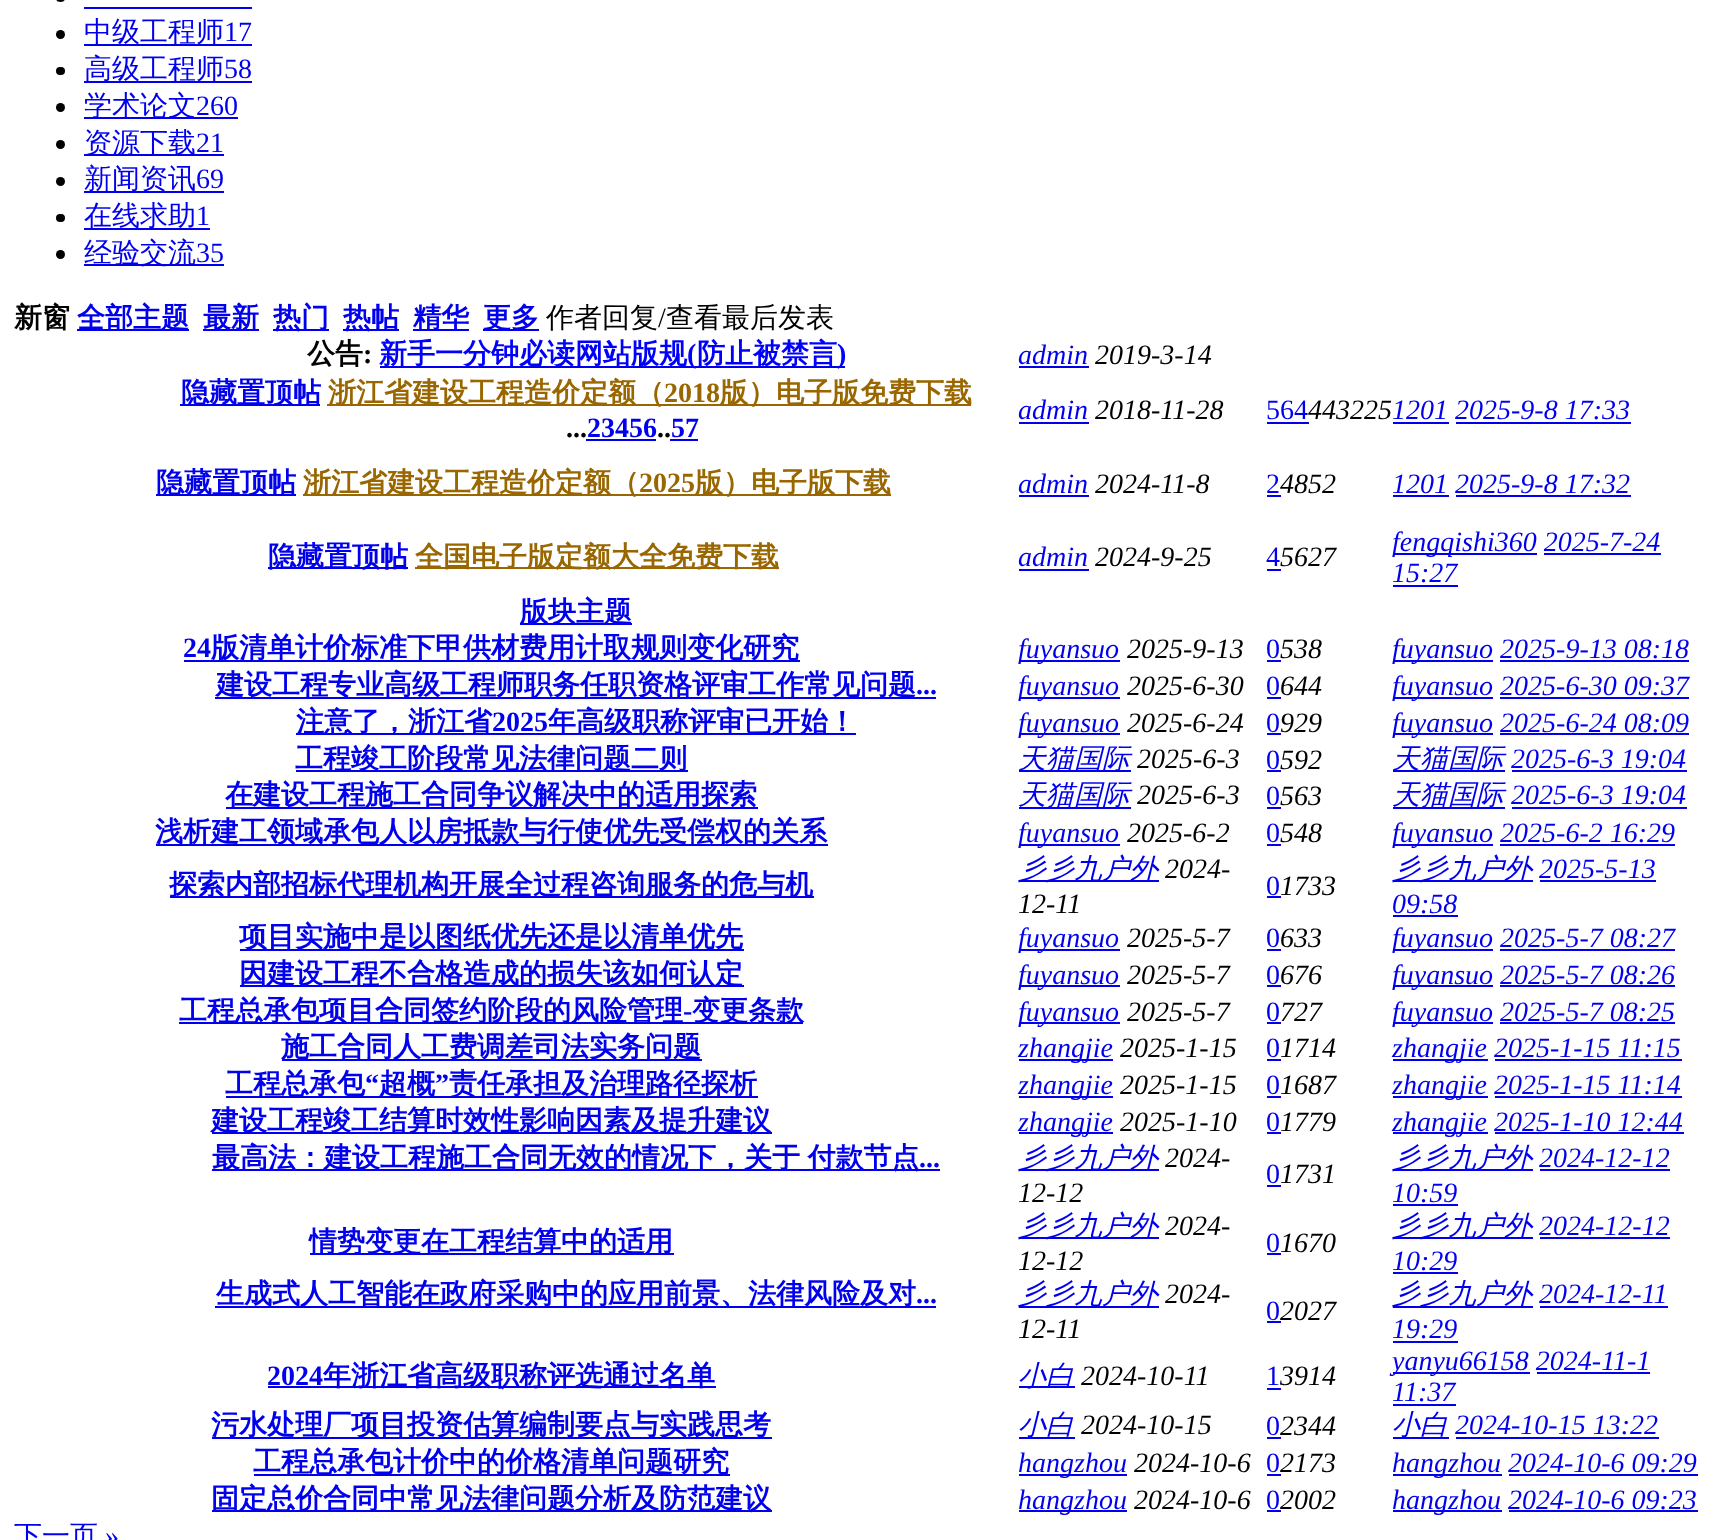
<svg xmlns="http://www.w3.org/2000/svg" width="1719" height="1540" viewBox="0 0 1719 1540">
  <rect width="100%" height="100%" fill="#ffffff"/>
  <rect x="56" y="-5" width="9" height="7" rx="4.5" fill="#000000"/>
  <rect x="84" y="7" width="168" height="2" fill="#0000ee"/>
  <circle cx="60.5" cy="34.5" r="4.5" fill="#000000"/>
  <rect x="84" y="44" width="168" height="2" fill="#0000ee"/>
  <text x="84" y="41" font-family="WenQuanYi Zen Hei" font-size="28" font-weight="500" fill="#0000ee">中级工程师</text>
  <text x="224" y="41" font-family="Liberation Serif" font-size="28" fill="#0000ee">17</text>
  <rect x="56" y="67" width="9" height="8" rx="4" fill="#000000"/>
  <rect x="84" y="81" width="168" height="2" fill="#0000ee"/>
  <text x="84" y="78" font-family="WenQuanYi Zen Hei" font-size="28" font-weight="500" fill="#0000ee">高级工程师</text>
  <text x="224" y="78" font-family="Liberation Serif" font-size="28" fill="#0000ee">58</text>
  <circle cx="60.5" cy="107.5" r="4.5" fill="#000000"/>
  <rect x="84" y="117" width="154" height="2" fill="#0000ee"/>
  <text x="84" y="115" font-family="WenQuanYi Zen Hei" font-size="28" font-weight="500" fill="#0000ee">学术论文</text>
  <text x="196" y="115" font-family="Liberation Serif" font-size="28" fill="#0000ee">260</text>
  <circle cx="60.5" cy="144.5" r="4.5" fill="#000000"/>
  <rect x="84" y="154" width="140" height="2" fill="#0000ee"/>
  <text x="84" y="152" font-family="WenQuanYi Zen Hei" font-size="28" font-weight="500" fill="#0000ee">资源下载</text>
  <text x="196" y="152" font-family="Liberation Serif" font-size="28" fill="#0000ee">21</text>
  <circle cx="60.5" cy="181.5" r="4.5" fill="#000000"/>
  <rect x="84" y="191" width="140" height="2" fill="#0000ee"/>
  <text x="84" y="188" font-family="WenQuanYi Zen Hei" font-size="28" font-weight="500" fill="#0000ee">新闻资讯</text>
  <text x="196" y="188" font-family="Liberation Serif" font-size="28" fill="#0000ee">69</text>
  <rect x="56" y="214" width="9" height="8" rx="4" fill="#000000"/>
  <rect x="84" y="228" width="126" height="2" fill="#0000ee"/>
  <text x="84" y="225" font-family="WenQuanYi Zen Hei" font-size="28" font-weight="500" fill="#0000ee">在线求助</text>
  <text x="196" y="225" font-family="Liberation Serif" font-size="28" fill="#0000ee">1</text>
  <circle cx="60.5" cy="254.5" r="4.5" fill="#000000"/>
  <rect x="84" y="264" width="140" height="2" fill="#0000ee"/>
  <text x="84" y="262" font-family="WenQuanYi Zen Hei" font-size="28" font-weight="500" fill="#0000ee">经验交流</text>
  <text x="196" y="262" font-family="Liberation Serif" font-size="28" fill="#0000ee">35</text>
  <text x="14" y="327" font-family="WenQuanYi Zen Hei" font-size="28" font-weight="bold" fill="#000000">新窗</text>
  <rect x="77" y="329" width="112" height="2" fill="#0000ee"/>
  <text x="77" y="327" font-family="WenQuanYi Zen Hei" font-size="28" font-weight="bold" fill="#0000ee">全部主题</text>
  <rect x="203" y="329" width="56" height="2" fill="#0000ee"/>
  <text x="203" y="327" font-family="WenQuanYi Zen Hei" font-size="28" font-weight="bold" fill="#0000ee">最新</text>
  <rect x="273" y="329" width="56" height="2" fill="#0000ee"/>
  <text x="273" y="327" font-family="WenQuanYi Zen Hei" font-size="28" font-weight="bold" fill="#0000ee">热门</text>
  <rect x="343" y="329" width="56" height="2" fill="#0000ee"/>
  <text x="343" y="327" font-family="WenQuanYi Zen Hei" font-size="28" font-weight="bold" fill="#0000ee">热帖</text>
  <rect x="413" y="329" width="56" height="2" fill="#0000ee"/>
  <text x="413" y="327" font-family="WenQuanYi Zen Hei" font-size="28" font-weight="bold" fill="#0000ee">精华</text>
  <rect x="483" y="329" width="56" height="2" fill="#0000ee"/>
  <text x="483" y="327" font-family="WenQuanYi Zen Hei" font-size="28" font-weight="bold" fill="#0000ee">更多</text>
  <text x="546" y="327" font-family="WenQuanYi Zen Hei" font-size="28" font-weight="500" fill="#000000">作者回复</text>
  <text x="658" y="327" font-family="Liberation Serif" font-size="28" fill="#000000">/</text>
  <text x="666" y="327" font-family="WenQuanYi Zen Hei" font-size="28" font-weight="500" fill="#000000">查看最后发表</text>
  <text x="307" y="363" font-family="WenQuanYi Zen Hei" font-size="28" font-weight="bold" fill="#000000">公告</text>
  <text x="363" y="363" font-family="Liberation Serif" font-size="28" font-weight="bold" fill="#000000">:</text>
  <rect x="380" y="366" width="465" height="2" fill="#0000ee"/>
  <text x="379" y="363" font-family="WenQuanYi Zen Hei" font-size="28" font-weight="bold" fill="#0000ff">新手一分钟必读网站版规</text>
  <text x="687" y="363" font-family="Liberation Serif" font-size="28" font-weight="bold" fill="#0000ff">(</text>
  <text x="697" y="363" font-family="WenQuanYi Zen Hei" font-size="28" font-weight="bold" fill="#0000ff">防止被禁言</text>
  <text x="837" y="363" font-family="Liberation Serif" font-size="28" font-weight="bold" fill="#0000ff">)</text>
  <text x="1018" y="364" font-family="Liberation Serif" font-size="28" font-style="italic" fill="#0000ee">admin</text>
  <rect x="1019" y="366" width="70" height="2" fill="#0000ee"/>
  <text x="1095" y="364" font-family="Liberation Serif" font-size="28" font-style="italic" fill="#000000">2019-3-14</text>
  <rect x="180" y="404" width="140" height="2" fill="#0000ee"/>
  <text x="181" y="402" font-family="WenQuanYi Zen Hei" font-size="28" font-weight="bold" fill="#0000ee">隐藏置顶帖</text>
  <rect x="327" y="404" width="644" height="2" fill="#996600"/>
  <text x="328" y="402" font-family="WenQuanYi Zen Hei" font-size="28" font-weight="bold" fill="#996600">浙江省建设工程造价定额（</text>
  <text x="664" y="402" font-family="Liberation Serif" font-size="28" font-weight="bold" fill="#996600">2018</text>
  <text x="720" y="402" font-family="WenQuanYi Zen Hei" font-size="28" font-weight="bold" fill="#996600">版）电子版免费下载</text>
  <text x="566" y="437" font-family="Liberation Serif" font-size="28" font-weight="bold" fill="#000000">...</text>
  <rect x="586" y="439" width="70" height="2" fill="#0000ee"/>
  <text x="587" y="437" font-family="Liberation Serif" font-size="28" font-weight="bold" fill="#0000ee">23456</text>
  <text x="657" y="437" font-family="Liberation Serif" font-size="28" font-weight="bold" fill="#000000">..</text>
  <rect x="670" y="439" width="28" height="2" fill="#0000ee"/>
  <text x="671" y="437" font-family="Liberation Serif" font-size="28" font-weight="bold" fill="#0000ee">57</text>
  <text x="1018" y="419" font-family="Liberation Serif" font-size="28" font-style="italic" fill="#0000ee">admin</text>
  <rect x="1019" y="422" width="70" height="2" fill="#0000ee"/>
  <text x="1095" y="419" font-family="Liberation Serif" font-size="28" font-style="italic" fill="#000000">2018-11-28</text>
  <text x="1266" y="419" font-family="Liberation Serif" font-size="28" fill="#0000ee">564</text>
  <rect x="1267" y="422" width="42" height="2" fill="#0000ee"/>
  <text x="1308" y="419" font-family="Liberation Serif" font-size="28" font-style="italic" fill="#000000">443225</text>
  <text x="1392" y="419" font-family="Liberation Serif" font-size="28" font-style="italic" fill="#0000ee">1201 2025-9-8 17:33</text>
  <rect x="1393" y="422" width="56" height="2" fill="#0000ee"/>
  <rect x="1456" y="422" width="175" height="2" fill="#0000ee"/>
  <rect x="156" y="494" width="140" height="2" fill="#0000ee"/>
  <text x="156" y="492" font-family="WenQuanYi Zen Hei" font-size="28" font-weight="bold" fill="#0000ee">隐藏置顶帖</text>
  <rect x="303" y="494" width="588" height="2" fill="#996600"/>
  <text x="303" y="492" font-family="WenQuanYi Zen Hei" font-size="28" font-weight="bold" fill="#996600">浙江省建设工程造价定额（</text>
  <text x="639" y="492" font-family="Liberation Serif" font-size="28" font-weight="bold" fill="#996600">2025</text>
  <text x="695" y="492" font-family="WenQuanYi Zen Hei" font-size="28" font-weight="bold" fill="#996600">版）电子版下载</text>
  <text x="1018" y="493" font-family="Liberation Serif" font-size="28" font-style="italic" fill="#0000ee">admin</text>
  <rect x="1019" y="495" width="70" height="2" fill="#0000ee"/>
  <text x="1095" y="493" font-family="Liberation Serif" font-size="28" font-style="italic" fill="#000000">2024-11-8</text>
  <text x="1266" y="493" font-family="Liberation Serif" font-size="28" fill="#0000ee">2</text>
  <rect x="1267" y="495" width="14" height="2" fill="#0000ee"/>
  <text x="1280" y="493" font-family="Liberation Serif" font-size="28" font-style="italic" fill="#000000">4852</text>
  <text x="1392" y="493" font-family="Liberation Serif" font-size="28" font-style="italic" fill="#0000ee">1201 2025-9-8 17:32</text>
  <rect x="1393" y="495" width="56" height="2" fill="#0000ee"/>
  <rect x="1456" y="495" width="175" height="2" fill="#0000ee"/>
  <rect x="268" y="567" width="140" height="2" fill="#0000ee"/>
  <text x="268" y="566" font-family="WenQuanYi Zen Hei" font-size="28" font-weight="bold" fill="#0000ee">隐藏置顶帖</text>
  <rect x="415" y="567" width="364" height="2" fill="#996600"/>
  <text x="415" y="566" font-family="WenQuanYi Zen Hei" font-size="28" font-weight="bold" fill="#996600">全国电子版定额大全免费下载</text>
  <text x="1018" y="566" font-family="Liberation Serif" font-size="28" font-style="italic" fill="#0000ee">admin</text>
  <rect x="1019" y="569" width="70" height="2" fill="#0000ee"/>
  <text x="1095" y="566" font-family="Liberation Serif" font-size="28" font-style="italic" fill="#000000">2024-9-25</text>
  <text x="1266" y="566" font-family="Liberation Serif" font-size="28" fill="#0000ee">4</text>
  <rect x="1267" y="569" width="14" height="2" fill="#0000ee"/>
  <text x="1280" y="566" font-family="Liberation Serif" font-size="28" font-style="italic" fill="#000000">5627</text>
  <rect x="1393" y="553" width="144" height="2" fill="#0000ee"/>
  <text x="1392" y="551" font-family="Liberation Serif" font-size="28" font-style="italic" fill="#0000ee">fengqishi360 2025-7-24</text>
  <text x="1392" y="582" font-family="Liberation Serif" font-size="28" font-style="italic" fill="#0000ee">15:27</text>
  <rect x="1544" y="553" width="117" height="2" fill="#0000ee"/>
  <rect x="1393" y="585" width="65" height="2" fill="#0000ee"/>
  <rect x="520" y="623" width="112" height="2" fill="#0000ee"/>
  <text x="520" y="621" font-family="WenQuanYi Zen Hei" font-size="28" font-weight="bold" fill="#0000ee">版块主题</text>
  <text x="183" y="657" font-family="Liberation Serif" font-size="28" font-weight="bold" fill="#0000ee">24</text>
  <rect x="184" y="660" width="616" height="2" fill="#0000ee"/>
  <text x="211" y="657" font-family="WenQuanYi Zen Hei" font-size="28" font-weight="bold" fill="#0000ee">版清单计价标准下甲供材费用计取规则变化研究</text>
  <rect x="1019" y="660" width="101" height="2" fill="#0000ee"/>
  <text x="1018" y="658" font-family="Liberation Serif" font-size="28" font-style="italic" fill="#0000ee">fuyansuo</text>
  <text x="1127" y="658" font-family="Liberation Serif" font-size="28" font-style="italic" fill="#000000">2025-9-13</text>
  <text x="1266" y="658" font-family="Liberation Serif" font-size="28" fill="#0000ee">0</text>
  <rect x="1267" y="660" width="14" height="2" fill="#0000ee"/>
  <text x="1280" y="658" font-family="Liberation Serif" font-size="28" font-style="italic" fill="#000000">538</text>
  <rect x="1393" y="660" width="100" height="2" fill="#0000ee"/>
  <text x="1392" y="658" font-family="Liberation Serif" font-size="28" font-style="italic" fill="#0000ee">fuyansuo 2025-9-13 08:18</text>
  <rect x="1500" y="660" width="189" height="2" fill="#0000ee"/>
  <rect x="215" y="697" width="721" height="2" fill="#0000ee"/>
  <text x="216" y="694" font-family="WenQuanYi Zen Hei" font-size="28" font-weight="bold" fill="#0000ee">建设工程专业高级工程师职务任职资格评审工作常见问题</text>
  <text x="916" y="694" font-family="Liberation Serif" font-size="28" font-weight="bold" fill="#0000ee">...</text>
  <rect x="1019" y="697" width="101" height="2" fill="#0000ee"/>
  <text x="1018" y="695" font-family="Liberation Serif" font-size="28" font-style="italic" fill="#0000ee">fuyansuo</text>
  <text x="1127" y="695" font-family="Liberation Serif" font-size="28" font-style="italic" fill="#000000">2025-6-30</text>
  <text x="1266" y="695" font-family="Liberation Serif" font-size="28" fill="#0000ee">0</text>
  <rect x="1267" y="697" width="14" height="2" fill="#0000ee"/>
  <text x="1280" y="695" font-family="Liberation Serif" font-size="28" font-style="italic" fill="#000000">644</text>
  <rect x="1393" y="697" width="100" height="2" fill="#0000ee"/>
  <text x="1392" y="695" font-family="Liberation Serif" font-size="28" font-style="italic" fill="#0000ee">fuyansuo 2025-6-30 09:37</text>
  <rect x="1500" y="697" width="189" height="2" fill="#0000ee"/>
  <rect x="296" y="733" width="560" height="2" fill="#0000ee"/>
  <text x="296" y="731" font-family="WenQuanYi Zen Hei" font-size="28" font-weight="bold" fill="#0000ee">注意了，浙江省</text>
  <text x="492" y="731" font-family="Liberation Serif" font-size="28" font-weight="bold" fill="#0000ee">2025</text>
  <text x="548" y="731" font-family="WenQuanYi Zen Hei" font-size="28" font-weight="bold" fill="#0000ee">年高级职称评审已开始！</text>
  <rect x="1019" y="733" width="101" height="2" fill="#0000ee"/>
  <text x="1018" y="732" font-family="Liberation Serif" font-size="28" font-style="italic" fill="#0000ee">fuyansuo</text>
  <text x="1127" y="732" font-family="Liberation Serif" font-size="28" font-style="italic" fill="#000000">2025-6-24</text>
  <text x="1266" y="732" font-family="Liberation Serif" font-size="28" fill="#0000ee">0</text>
  <rect x="1267" y="733" width="14" height="2" fill="#0000ee"/>
  <text x="1280" y="732" font-family="Liberation Serif" font-size="28" font-style="italic" fill="#000000">929</text>
  <rect x="1393" y="733" width="100" height="2" fill="#0000ee"/>
  <text x="1392" y="732" font-family="Liberation Serif" font-size="28" font-style="italic" fill="#0000ee">fuyansuo 2025-6-24 08:09</text>
  <rect x="1500" y="733" width="189" height="2" fill="#0000ee"/>
  <rect x="296" y="770" width="392" height="2" fill="#0000ee"/>
  <text x="295" y="768" font-family="WenQuanYi Zen Hei" font-size="28" font-weight="bold" fill="#0000ee">工程竣工阶段常见法律问题二则</text>
  <rect x="1019" y="770" width="112" height="2" fill="#0000ee"/>
  <text x="1018" y="768" font-family="WenQuanYi Zen Hei" font-size="28" font-weight="500" font-style="italic" fill="#0000ee">天猫国际</text>
  <text x="1137" y="768" font-family="Liberation Serif" font-size="28" font-style="italic" fill="#000000">2025-6-3</text>
  <text x="1266" y="769" font-family="Liberation Serif" font-size="28" fill="#0000ee">0</text>
  <rect x="1267" y="770" width="14" height="2" fill="#0000ee"/>
  <text x="1280" y="769" font-family="Liberation Serif" font-size="28" font-style="italic" fill="#000000">592</text>
  <rect x="1393" y="770" width="112" height="2" fill="#0000ee"/>
  <text x="1392" y="768" font-family="WenQuanYi Zen Hei" font-size="28" font-weight="500" font-style="italic" fill="#0000ee">天猫国际</text>
  <text x="1511" y="768" font-family="Liberation Serif" font-size="28" font-style="italic" fill="#0000ee">2025-6-3 19:04</text>
  <rect x="1512" y="770" width="175" height="2" fill="#0000ee"/>
  <rect x="226" y="807" width="532" height="2" fill="#0000ee"/>
  <text x="225" y="804" font-family="WenQuanYi Zen Hei" font-size="28" font-weight="bold" fill="#0000ee">在建设工程施工合同争议解决中的适用探索</text>
  <rect x="1019" y="807" width="112" height="2" fill="#0000ee"/>
  <text x="1018" y="804" font-family="WenQuanYi Zen Hei" font-size="28" font-weight="500" font-style="italic" fill="#0000ee">天猫国际</text>
  <text x="1137" y="804" font-family="Liberation Serif" font-size="28" font-style="italic" fill="#000000">2025-6-3</text>
  <text x="1266" y="805" font-family="Liberation Serif" font-size="28" fill="#0000ee">0</text>
  <rect x="1267" y="807" width="14" height="2" fill="#0000ee"/>
  <text x="1280" y="805" font-family="Liberation Serif" font-size="28" font-style="italic" fill="#000000">563</text>
  <rect x="1393" y="807" width="112" height="2" fill="#0000ee"/>
  <text x="1392" y="804" font-family="WenQuanYi Zen Hei" font-size="28" font-weight="500" font-style="italic" fill="#0000ee">天猫国际</text>
  <text x="1511" y="804" font-family="Liberation Serif" font-size="28" font-style="italic" fill="#0000ee">2025-6-3 19:04</text>
  <rect x="1512" y="807" width="175" height="2" fill="#0000ee"/>
  <rect x="156" y="844" width="672" height="2" fill="#0000ee"/>
  <text x="155" y="841" font-family="WenQuanYi Zen Hei" font-size="28" font-weight="bold" fill="#0000ee">浅析建工领域承包人以房抵款与行使优先受偿权的关系</text>
  <rect x="1019" y="844" width="101" height="2" fill="#0000ee"/>
  <text x="1018" y="842" font-family="Liberation Serif" font-size="28" font-style="italic" fill="#0000ee">fuyansuo</text>
  <text x="1127" y="842" font-family="Liberation Serif" font-size="28" font-style="italic" fill="#000000">2025-6-2</text>
  <text x="1266" y="842" font-family="Liberation Serif" font-size="28" fill="#0000ee">0</text>
  <rect x="1267" y="844" width="14" height="2" fill="#0000ee"/>
  <text x="1280" y="842" font-family="Liberation Serif" font-size="28" font-style="italic" fill="#000000">548</text>
  <rect x="1393" y="844" width="100" height="2" fill="#0000ee"/>
  <text x="1392" y="842" font-family="Liberation Serif" font-size="28" font-style="italic" fill="#0000ee">fuyansuo 2025-6-2 16:29</text>
  <rect x="1500" y="844" width="175" height="2" fill="#0000ee"/>
  <rect x="170" y="896" width="644" height="2" fill="#0000ee"/>
  <text x="169" y="894" font-family="WenQuanYi Zen Hei" font-size="28" font-weight="bold" fill="#0000ee">探索内部招标代理机构开展全过程咨询服务的危与机</text>
  <rect x="1019" y="880" width="140" height="2" fill="#0000ee"/>
  <text x="1018" y="878" font-family="WenQuanYi Zen Hei" font-size="28" font-weight="500" font-style="italic" fill="#0000ee">彡彡九户外</text>
  <text x="1165" y="878" font-family="Liberation Serif" font-size="28" font-style="italic" fill="#000000">2024-</text>
  <text x="1018" y="913" font-family="Liberation Serif" font-size="28" font-style="italic" fill="#000000">12-11</text>
  <text x="1266" y="895" font-family="Liberation Serif" font-size="28" fill="#0000ee">0</text>
  <rect x="1267" y="896" width="14" height="2" fill="#0000ee"/>
  <text x="1280" y="895" font-family="Liberation Serif" font-size="28" font-style="italic" fill="#000000">1733</text>
  <rect x="1393" y="880" width="140" height="2" fill="#0000ee"/>
  <text x="1392" y="878" font-family="WenQuanYi Zen Hei" font-size="28" font-weight="500" font-style="italic" fill="#0000ee">彡彡九户外</text>
  <text x="1539" y="878" font-family="Liberation Serif" font-size="28" font-style="italic" fill="#0000ee">2025-5-13</text>
  <rect x="1540" y="880" width="116" height="2" fill="#0000ee"/>
  <text x="1392" y="913" font-family="Liberation Serif" font-size="28" font-style="italic" fill="#0000ee">09:58</text>
  <rect x="1393" y="915" width="65" height="2" fill="#0000ee"/>
  <rect x="240" y="949" width="504" height="2" fill="#0000ee"/>
  <text x="239" y="946" font-family="WenQuanYi Zen Hei" font-size="28" font-weight="bold" fill="#0000ee">项目实施中是以图纸优先还是以清单优先</text>
  <rect x="1019" y="949" width="101" height="2" fill="#0000ee"/>
  <text x="1018" y="947" font-family="Liberation Serif" font-size="28" font-style="italic" fill="#0000ee">fuyansuo</text>
  <text x="1127" y="947" font-family="Liberation Serif" font-size="28" font-style="italic" fill="#000000">2025-5-7</text>
  <text x="1266" y="947" font-family="Liberation Serif" font-size="28" fill="#0000ee">0</text>
  <rect x="1267" y="949" width="14" height="2" fill="#0000ee"/>
  <text x="1280" y="947" font-family="Liberation Serif" font-size="28" font-style="italic" fill="#000000">633</text>
  <rect x="1393" y="949" width="100" height="2" fill="#0000ee"/>
  <text x="1392" y="947" font-family="Liberation Serif" font-size="28" font-style="italic" fill="#0000ee">fuyansuo 2025-5-7 08:27</text>
  <rect x="1500" y="949" width="175" height="2" fill="#0000ee"/>
  <rect x="240" y="985" width="504" height="2" fill="#0000ee"/>
  <text x="239" y="983" font-family="WenQuanYi Zen Hei" font-size="28" font-weight="bold" fill="#0000ee">因建设工程不合格造成的损失该如何认定</text>
  <rect x="1019" y="985" width="101" height="2" fill="#0000ee"/>
  <text x="1018" y="984" font-family="Liberation Serif" font-size="28" font-style="italic" fill="#0000ee">fuyansuo</text>
  <text x="1127" y="984" font-family="Liberation Serif" font-size="28" font-style="italic" fill="#000000">2025-5-7</text>
  <text x="1266" y="984" font-family="Liberation Serif" font-size="28" fill="#0000ee">0</text>
  <rect x="1267" y="985" width="14" height="2" fill="#0000ee"/>
  <text x="1280" y="984" font-family="Liberation Serif" font-size="28" font-style="italic" fill="#000000">676</text>
  <rect x="1393" y="985" width="100" height="2" fill="#0000ee"/>
  <text x="1392" y="984" font-family="Liberation Serif" font-size="28" font-style="italic" fill="#0000ee">fuyansuo 2025-5-7 08:26</text>
  <rect x="1500" y="985" width="175" height="2" fill="#0000ee"/>
  <rect x="179" y="1022" width="624" height="2" fill="#0000ee"/>
  <text x="179" y="1020" font-family="WenQuanYi Zen Hei" font-size="28" font-weight="bold" fill="#0000ee">工程总承包项目合同签约阶段的风险管理</text>
  <text x="683" y="1020" font-family="Liberation Serif" font-size="28" font-weight="bold" fill="#0000ee">-</text>
  <text x="692" y="1020" font-family="WenQuanYi Zen Hei" font-size="28" font-weight="bold" fill="#0000ee">变更条款</text>
  <rect x="1019" y="1022" width="101" height="2" fill="#0000ee"/>
  <text x="1018" y="1021" font-family="Liberation Serif" font-size="28" font-style="italic" fill="#0000ee">fuyansuo</text>
  <text x="1127" y="1021" font-family="Liberation Serif" font-size="28" font-style="italic" fill="#000000">2025-5-7</text>
  <text x="1266" y="1021" font-family="Liberation Serif" font-size="28" fill="#0000ee">0</text>
  <rect x="1267" y="1022" width="14" height="2" fill="#0000ee"/>
  <text x="1280" y="1021" font-family="Liberation Serif" font-size="28" font-style="italic" fill="#000000">727</text>
  <rect x="1393" y="1022" width="100" height="2" fill="#0000ee"/>
  <text x="1392" y="1021" font-family="Liberation Serif" font-size="28" font-style="italic" fill="#0000ee">fuyansuo 2025-5-7 08:25</text>
  <rect x="1500" y="1022" width="175" height="2" fill="#0000ee"/>
  <rect x="282" y="1059" width="420" height="2" fill="#0000ee"/>
  <text x="281" y="1056" font-family="WenQuanYi Zen Hei" font-size="28" font-weight="bold" fill="#0000ee">施工合同人工费调差司法实务问题</text>
  <rect x="1019" y="1059" width="94" height="2" fill="#0000ee"/>
  <text x="1018" y="1057" font-family="Liberation Serif" font-size="28" font-style="italic" fill="#0000ee">zhangjie</text>
  <text x="1120" y="1057" font-family="Liberation Serif" font-size="28" font-style="italic" fill="#000000">2025-1-15</text>
  <text x="1266" y="1057" font-family="Liberation Serif" font-size="28" fill="#0000ee">0</text>
  <rect x="1267" y="1059" width="14" height="2" fill="#0000ee"/>
  <text x="1280" y="1057" font-family="Liberation Serif" font-size="28" font-style="italic" fill="#000000">1714</text>
  <rect x="1393" y="1059" width="95" height="2" fill="#0000ee"/>
  <text x="1392" y="1057" font-family="Liberation Serif" font-size="28" font-style="italic" fill="#0000ee">zhangjie 2025-1-15 11:15</text>
  <rect x="1495" y="1059" width="187" height="2" fill="#0000ee"/>
  <rect x="226" y="1096" width="532" height="2" fill="#0000ee"/>
  <text x="225" y="1093" font-family="WenQuanYi Zen Hei" font-size="28" font-weight="bold" fill="#0000ee">工程总承包</text>
  <text x="365" y="1093" font-family="Liberation Serif" font-size="28" font-weight="bold" fill="#0000ee">“</text>
  <text x="379" y="1093" font-family="WenQuanYi Zen Hei" font-size="28" font-weight="bold" fill="#0000ee">超概</text>
  <text x="435" y="1093" font-family="Liberation Serif" font-size="28" font-weight="bold" fill="#0000ee">”</text>
  <text x="449" y="1093" font-family="WenQuanYi Zen Hei" font-size="28" font-weight="bold" fill="#0000ee">责任承担及治理路径探析</text>
  <rect x="1019" y="1096" width="94" height="2" fill="#0000ee"/>
  <text x="1018" y="1094" font-family="Liberation Serif" font-size="28" font-style="italic" fill="#0000ee">zhangjie</text>
  <text x="1120" y="1094" font-family="Liberation Serif" font-size="28" font-style="italic" fill="#000000">2025-1-15</text>
  <text x="1266" y="1094" font-family="Liberation Serif" font-size="28" fill="#0000ee">0</text>
  <rect x="1267" y="1096" width="14" height="2" fill="#0000ee"/>
  <text x="1280" y="1094" font-family="Liberation Serif" font-size="28" font-style="italic" fill="#000000">1687</text>
  <rect x="1393" y="1096" width="95" height="2" fill="#0000ee"/>
  <text x="1392" y="1094" font-family="Liberation Serif" font-size="28" font-style="italic" fill="#0000ee">zhangjie 2025-1-15 11:14</text>
  <rect x="1495" y="1096" width="187" height="2" fill="#0000ee"/>
  <rect x="212" y="1132" width="560" height="2" fill="#0000ee"/>
  <text x="211" y="1130" font-family="WenQuanYi Zen Hei" font-size="28" font-weight="bold" fill="#0000ee">建设工程竣工结算时效性影响因素及提升建议</text>
  <rect x="1019" y="1132" width="94" height="2" fill="#0000ee"/>
  <text x="1018" y="1131" font-family="Liberation Serif" font-size="28" font-style="italic" fill="#0000ee">zhangjie</text>
  <text x="1120" y="1131" font-family="Liberation Serif" font-size="28" font-style="italic" fill="#000000">2025-1-10</text>
  <text x="1266" y="1131" font-family="Liberation Serif" font-size="28" fill="#0000ee">0</text>
  <rect x="1267" y="1132" width="14" height="2" fill="#0000ee"/>
  <text x="1280" y="1131" font-family="Liberation Serif" font-size="28" font-style="italic" fill="#000000">1779</text>
  <rect x="1393" y="1132" width="95" height="2" fill="#0000ee"/>
  <text x="1392" y="1131" font-family="Liberation Serif" font-size="28" font-style="italic" fill="#0000ee">zhangjie 2025-1-10 12:44</text>
  <rect x="1495" y="1132" width="189" height="2" fill="#0000ee"/>
  <rect x="212" y="1169" width="728" height="2" fill="#0000ee"/>
  <text x="212" y="1167" word-spacing="-1" font-family="WenQuanYi Zen Hei" font-size="28" font-weight="bold" fill="#0000ee">最高法：建设工程施工合同无效的情况下，关于 付款节点</text>
  <text x="919" y="1167" font-family="Liberation Serif" font-size="28" font-weight="bold" fill="#0000ee">...</text>
  <rect x="1019" y="1169" width="140" height="2" fill="#0000ee"/>
  <text x="1018" y="1167" font-family="WenQuanYi Zen Hei" font-size="28" font-weight="500" font-style="italic" fill="#0000ee">彡彡九户外</text>
  <text x="1165" y="1167" font-family="Liberation Serif" font-size="28" font-style="italic" fill="#000000">2024-</text>
  <text x="1018" y="1202" font-family="Liberation Serif" font-size="28" font-style="italic" fill="#000000">12-12</text>
  <text x="1266" y="1183" font-family="Liberation Serif" font-size="28" fill="#0000ee">0</text>
  <rect x="1267" y="1185" width="14" height="2" fill="#0000ee"/>
  <text x="1280" y="1183" font-family="Liberation Serif" font-size="28" font-style="italic" fill="#000000">1731</text>
  <rect x="1393" y="1169" width="140" height="2" fill="#0000ee"/>
  <text x="1392" y="1167" font-family="WenQuanYi Zen Hei" font-size="28" font-weight="500" font-style="italic" fill="#0000ee">彡彡九户外</text>
  <text x="1539" y="1167" font-family="Liberation Serif" font-size="28" font-style="italic" fill="#0000ee">2024-12-12</text>
  <rect x="1540" y="1169" width="130" height="2" fill="#0000ee"/>
  <text x="1392" y="1202" font-family="Liberation Serif" font-size="28" font-style="italic" fill="#0000ee">10:59</text>
  <rect x="1393" y="1204" width="65" height="2" fill="#0000ee"/>
  <rect x="310" y="1253" width="364" height="2" fill="#0000ee"/>
  <text x="309" y="1251" font-family="WenQuanYi Zen Hei" font-size="28" font-weight="bold" fill="#0000ee">情势变更在工程结算中的适用</text>
  <rect x="1019" y="1237" width="140" height="2" fill="#0000ee"/>
  <text x="1018" y="1235" font-family="WenQuanYi Zen Hei" font-size="28" font-weight="500" font-style="italic" fill="#0000ee">彡彡九户外</text>
  <text x="1165" y="1235" font-family="Liberation Serif" font-size="28" font-style="italic" fill="#000000">2024-</text>
  <text x="1018" y="1270" font-family="Liberation Serif" font-size="28" font-style="italic" fill="#000000">12-12</text>
  <text x="1266" y="1252" font-family="Liberation Serif" font-size="28" fill="#0000ee">0</text>
  <rect x="1267" y="1253" width="14" height="2" fill="#0000ee"/>
  <text x="1280" y="1252" font-family="Liberation Serif" font-size="28" font-style="italic" fill="#000000">1670</text>
  <rect x="1393" y="1237" width="140" height="2" fill="#0000ee"/>
  <text x="1392" y="1235" font-family="WenQuanYi Zen Hei" font-size="28" font-weight="500" font-style="italic" fill="#0000ee">彡彡九户外</text>
  <text x="1539" y="1235" font-family="Liberation Serif" font-size="28" font-style="italic" fill="#0000ee">2024-12-12</text>
  <rect x="1540" y="1237" width="130" height="2" fill="#0000ee"/>
  <text x="1392" y="1270" font-family="Liberation Serif" font-size="28" font-style="italic" fill="#0000ee">10:29</text>
  <rect x="1393" y="1272" width="65" height="2" fill="#0000ee"/>
  <rect x="215" y="1306" width="721" height="2" fill="#0000ee"/>
  <text x="216" y="1303" font-family="WenQuanYi Zen Hei" font-size="28" font-weight="bold" fill="#0000ee">生成式人工智能在政府采购中的应用前景、法律风险及对</text>
  <text x="916" y="1303" font-family="Liberation Serif" font-size="28" font-weight="bold" fill="#0000ee">...</text>
  <rect x="1019" y="1306" width="140" height="2" fill="#0000ee"/>
  <text x="1018" y="1303" font-family="WenQuanYi Zen Hei" font-size="28" font-weight="500" font-style="italic" fill="#0000ee">彡彡九户外</text>
  <text x="1165" y="1303" font-family="Liberation Serif" font-size="28" font-style="italic" fill="#000000">2024-</text>
  <text x="1018" y="1338" font-family="Liberation Serif" font-size="28" font-style="italic" fill="#000000">12-11</text>
  <text x="1266" y="1320" font-family="Liberation Serif" font-size="28" fill="#0000ee">0</text>
  <rect x="1267" y="1321" width="14" height="2" fill="#0000ee"/>
  <text x="1280" y="1320" font-family="Liberation Serif" font-size="28" font-style="italic" fill="#000000">2027</text>
  <rect x="1393" y="1306" width="140" height="2" fill="#0000ee"/>
  <text x="1392" y="1303" font-family="WenQuanYi Zen Hei" font-size="28" font-weight="500" font-style="italic" fill="#0000ee">彡彡九户外</text>
  <text x="1539" y="1303" font-family="Liberation Serif" font-size="28" font-style="italic" fill="#0000ee">2024-12-11</text>
  <rect x="1540" y="1306" width="128" height="2" fill="#0000ee"/>
  <text x="1392" y="1338" font-family="Liberation Serif" font-size="28" font-style="italic" fill="#0000ee">19:29</text>
  <rect x="1393" y="1341" width="65" height="2" fill="#0000ee"/>
  <text x="267" y="1385" font-family="Liberation Serif" font-size="28" font-weight="bold" fill="#0000ee">2024</text>
  <rect x="268" y="1386" width="448" height="2" fill="#0000ee"/>
  <text x="323" y="1385" font-family="WenQuanYi Zen Hei" font-size="28" font-weight="bold" fill="#0000ee">年浙江省高级职称评选通过名单</text>
  <rect x="1019" y="1386" width="56" height="2" fill="#0000ee"/>
  <text x="1018" y="1385" font-family="WenQuanYi Zen Hei" font-size="28" font-weight="500" font-style="italic" fill="#0000ee">小白</text>
  <text x="1081" y="1385" font-family="Liberation Serif" font-size="28" font-style="italic" fill="#000000">2024-10-11</text>
  <text x="1266" y="1385" font-family="Liberation Serif" font-size="28" fill="#0000ee">1</text>
  <rect x="1267" y="1388" width="14" height="2" fill="#0000ee"/>
  <text x="1280" y="1385" font-family="Liberation Serif" font-size="28" font-style="italic" fill="#000000">3914</text>
  <rect x="1393" y="1372" width="137" height="2" fill="#0000ee"/>
  <text x="1392" y="1370" font-family="Liberation Serif" font-size="28" font-style="italic" fill="#0000ee">yanyu66158 2024-11-1</text>
  <text x="1392" y="1401" font-family="Liberation Serif" font-size="28" font-style="italic" fill="#0000ee">11:37</text>
  <rect x="1537" y="1372" width="113" height="2" fill="#0000ee"/>
  <rect x="1393" y="1404" width="63" height="2" fill="#0000ee"/>
  <rect x="212" y="1437" width="560" height="2" fill="#0000ee"/>
  <text x="211" y="1434" font-family="WenQuanYi Zen Hei" font-size="28" font-weight="bold" fill="#0000ee">污水处理厂项目投资估算编制要点与实践思考</text>
  <rect x="1019" y="1437" width="56" height="2" fill="#0000ee"/>
  <text x="1018" y="1434" font-family="WenQuanYi Zen Hei" font-size="28" font-weight="500" font-style="italic" fill="#0000ee">小白</text>
  <text x="1081" y="1434" font-family="Liberation Serif" font-size="28" font-style="italic" fill="#000000">2024-10-15</text>
  <text x="1266" y="1435" font-family="Liberation Serif" font-size="28" fill="#0000ee">0</text>
  <rect x="1267" y="1437" width="14" height="2" fill="#0000ee"/>
  <text x="1280" y="1435" font-family="Liberation Serif" font-size="28" font-style="italic" fill="#000000">2344</text>
  <rect x="1393" y="1437" width="56" height="2" fill="#0000ee"/>
  <text x="1392" y="1434" font-family="WenQuanYi Zen Hei" font-size="28" font-weight="500" font-style="italic" fill="#0000ee">小白</text>
  <text x="1455" y="1434" font-family="Liberation Serif" font-size="28" font-style="italic" fill="#0000ee">2024-10-15 13:22</text>
  <rect x="1456" y="1437" width="203" height="2" fill="#0000ee"/>
  <rect x="254" y="1474" width="476" height="2" fill="#0000ee"/>
  <text x="253" y="1471" font-family="WenQuanYi Zen Hei" font-size="28" font-weight="bold" fill="#0000ee">工程总承包计价中的价格清单问题研究</text>
  <rect x="1019" y="1474" width="108" height="2" fill="#0000ee"/>
  <text x="1018" y="1472" font-family="Liberation Serif" font-size="28" font-style="italic" fill="#0000ee">hangzhou</text>
  <text x="1134" y="1472" font-family="Liberation Serif" font-size="28" font-style="italic" fill="#000000">2024-10-6</text>
  <text x="1266" y="1472" font-family="Liberation Serif" font-size="28" fill="#0000ee">0</text>
  <rect x="1267" y="1474" width="14" height="2" fill="#0000ee"/>
  <text x="1280" y="1472" font-family="Liberation Serif" font-size="28" font-style="italic" fill="#000000">2173</text>
  <rect x="1393" y="1474" width="109" height="2" fill="#0000ee"/>
  <text x="1392" y="1472" font-family="Liberation Serif" font-size="28" font-style="italic" fill="#0000ee">hangzhou 2024-10-6 09:29</text>
  <rect x="1509" y="1474" width="189" height="2" fill="#0000ee"/>
  <rect x="212" y="1510" width="560" height="2" fill="#0000ee"/>
  <text x="211" y="1508" font-family="WenQuanYi Zen Hei" font-size="28" font-weight="bold" fill="#0000ee">固定总价合同中常见法律问题分析及防范建议</text>
  <rect x="1019" y="1510" width="108" height="2" fill="#0000ee"/>
  <text x="1018" y="1509" font-family="Liberation Serif" font-size="28" font-style="italic" fill="#0000ee">hangzhou</text>
  <text x="1134" y="1509" font-family="Liberation Serif" font-size="28" font-style="italic" fill="#000000">2024-10-6</text>
  <text x="1266" y="1509" font-family="Liberation Serif" font-size="28" fill="#0000ee">0</text>
  <rect x="1267" y="1510" width="14" height="2" fill="#0000ee"/>
  <text x="1280" y="1509" font-family="Liberation Serif" font-size="28" font-style="italic" fill="#000000">2002</text>
  <rect x="1393" y="1510" width="109" height="2" fill="#0000ee"/>
  <text x="1392" y="1509" font-family="Liberation Serif" font-size="28" font-style="italic" fill="#0000ee">hangzhou 2024-10-6 09:23</text>
  <rect x="1509" y="1510" width="189" height="2" fill="#0000ee"/>
  <text x="14" y="1545" font-family="WenQuanYi Zen Hei" font-size="28" font-weight="500" fill="#0000ee">下一页</text>
  <text x="105" y="1545" font-family="Liberation Serif" font-size="28" fill="#0000ee">»</text>
</svg>
